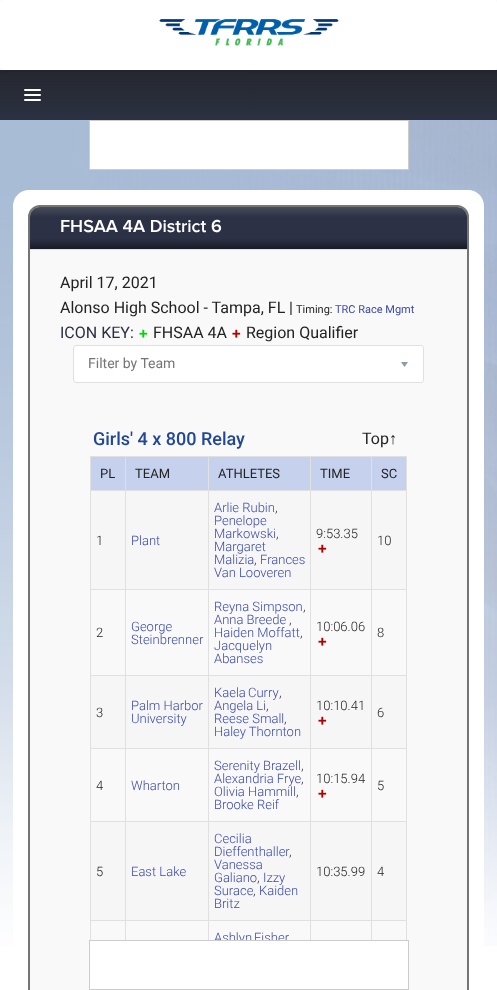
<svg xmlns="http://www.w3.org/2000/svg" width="497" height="990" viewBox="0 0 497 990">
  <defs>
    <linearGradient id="g1" gradientUnits="userSpaceOnUse" x1="249" y1="70" x2="249" y2="120"><stop offset="0" stop-color="#25272f"/><stop offset="1" stop-color="#2b3141"/></linearGradient>
    <filter id="blur1" x="-50%" y="-200%" width="200%" height="500%"><feGaussianBlur stdDeviation="2"/></filter>
    <linearGradient id="g2" gradientUnits="userSpaceOnUse" x1="249" y1="207" x2="249" y2="249"><stop offset="0" stop-color="#484d5c"/><stop offset="0.24" stop-color="#2c3146"/><stop offset="0.74" stop-color="#2c3146"/><stop offset="1" stop-color="#181c26"/></linearGradient>
  </defs>
  <rect width="100%" height="100%" fill="#ffffff"/>
  <image x="0" y="120" width="497" height="826" href="img1.png"/>
  <rect x="0" y="70" width="497" height="50" fill="url(#g1)"/>
  <rect x="0" y="1" width="497" height="70" rx="3" fill="#000000" fill-opacity="0.1" filter="url(#blur1)"/>
  <rect x="0" y="0" width="497" height="70" rx="3" fill="#ffffff"/>
  <image x="159" y="19" width="180" height="27" href="img2.png"/>
  <rect x="24" y="89" width="17" height="2" rx="1" fill="#ffffff"/>
  <rect x="24" y="94" width="17" height="2" rx="1" fill="#ffffff"/>
  <rect x="24" y="99" width="17" height="2" rx="1" fill="#ffffff"/>
  <rect x="89.5" y="120.5" width="319" height="49" fill="#ffffff" stroke="#cccccc"/>
  <path d="M29 190H468C477 190 484 197 484 206V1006H13V206C13 197 20 190 29 190Z" fill="#ffffff"/>
  <rect x="29" y="206" width="439" height="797" rx="11" fill="none" stroke="#757575" stroke-width="2"/>
  <path d="M40 207H457C462.5 207 467 211.5 467 217V249H30V217C30 211.5 34.5 207 40 207Z" fill="url(#g2)"/>
  <rect x="30" y="249" width="437" height="1" fill="#e0e0e0"/>
  <text x="60" y="232" font-family="Proxima Nova" font-size="18" font-weight="600" fill="#ffffff">FHSAA 4A District 6</text>
  <rect x="30" y="250" width="437" height="740" fill="#f9f9f9"/>
  <text x="60" y="288" font-family="Roboto" font-size="16" fill="#232323">April 17, 2021</text>
  <text x="60" y="313" font-family="Roboto" font-size="16" fill="#232323">Alonso High School - Tampa, FL</text>
  <text x="289" y="313" font-family="Roboto" font-size="16" fill="#232323">|</text>
  <text x="296" y="313" font-family="Roboto" font-size="11" fill="#232323">Timing:</text>
  <text x="335" y="313" font-family="Roboto" font-size="11" fill="#3949ab">TRC Race Mgmt</text>
  <text x="60" y="338" font-family="Roboto" font-size="16" fill="#2a3040">ICON KEY:</text>
  <image x="139" y="329" width="9" height="9" href="img3.png"/>
  <text x="153" y="338" font-family="Roboto" font-size="16" fill="#232323">FHSAA 4A</text>
  <image x="232" y="329" width="9" height="9" href="img4.png"/>
  <text x="246" y="338" font-family="Roboto" font-size="16" fill="#232323">Region Qualifier</text>
  <rect x="73" y="345" width="351" height="38" rx="3" fill="#ffffff"/>
  <image x="401" y="362" width="7" height="5" href="img5.png"/>
  <rect x="73.5" y="345.5" width="350" height="37" rx="2.5" fill="none" stroke="#e0e0e0"/>
  <text x="88" y="368" font-family="Roboto" font-size="14" fill="#757575">Filter by Team</text>
  <text x="93" y="445" font-family="Roboto" font-size="18" font-weight="500" fill="#224798">Girls' 4 x 800 Relay</text>
  <text x="362" y="444" font-family="Roboto" font-size="16" fill="#232323">Top</text>
  <text x="389" y="444" font-family="Liberation Sans" font-size="16" fill="#232323">↑</text>
  <rect x="91" y="457" width="34" height="33" fill="#c5d1ed"/>
  <rect x="371" y="456" width="36" height="1" fill="#e0e0e0"/>
  <rect x="371" y="490" width="36" height="1" fill="#e0e0e0"/>
  <rect x="91" y="491" width="315" height="98" fill="#f6f6f6"/>
  <rect x="371" y="589" width="36" height="1" fill="#e0e0e0"/>
  <rect x="371" y="675" width="36" height="1" fill="#e0e0e0"/>
  <rect x="91" y="676" width="315" height="72" fill="#f6f6f6"/>
  <rect x="371" y="748" width="36" height="1" fill="#e0e0e0"/>
  <rect x="371" y="821" width="36" height="1" fill="#e0e0e0"/>
  <rect x="91" y="822" width="315" height="98" fill="#f6f6f6"/>
  <rect x="371" y="920" width="36" height="1" fill="#e0e0e0"/>
  <rect x="371" y="920" width="1" height="20" fill="#e0e0e0"/>
  <rect x="310" y="920" width="62" height="1" fill="#e0e0e0"/>
  <rect x="371" y="821" width="1" height="100" fill="#e0e0e0"/>
  <rect x="310" y="821" width="62" height="1" fill="#e0e0e0"/>
  <rect x="371" y="748" width="1" height="74" fill="#e0e0e0"/>
  <rect x="310" y="748" width="62" height="1" fill="#e0e0e0"/>
  <rect x="371" y="675" width="1" height="74" fill="#e0e0e0"/>
  <rect x="310" y="675" width="62" height="1" fill="#e0e0e0"/>
  <rect x="371" y="589" width="1" height="87" fill="#e0e0e0"/>
  <rect x="310" y="589" width="62" height="1" fill="#e0e0e0"/>
  <rect x="371" y="490" width="1" height="100" fill="#e0e0e0"/>
  <rect x="310" y="490" width="62" height="1" fill="#e0e0e0"/>
  <rect x="371" y="456" width="1" height="35" fill="#e0e0e0"/>
  <rect x="310" y="456" width="62" height="1" fill="#e0e0e0"/>
  <rect x="310" y="920" width="1" height="20" fill="#e0e0e0"/>
  <rect x="208" y="920" width="103" height="1" fill="#e0e0e0"/>
  <rect x="310" y="821" width="1" height="100" fill="#e0e0e0"/>
  <rect x="208" y="821" width="103" height="1" fill="#e0e0e0"/>
  <rect x="310" y="748" width="1" height="74" fill="#e0e0e0"/>
  <rect x="208" y="748" width="103" height="1" fill="#e0e0e0"/>
  <rect x="310" y="675" width="1" height="74" fill="#e0e0e0"/>
  <rect x="208" y="675" width="103" height="1" fill="#e0e0e0"/>
  <rect x="310" y="589" width="1" height="87" fill="#e0e0e0"/>
  <rect x="208" y="589" width="103" height="1" fill="#e0e0e0"/>
  <rect x="310" y="490" width="1" height="100" fill="#e0e0e0"/>
  <rect x="208" y="490" width="103" height="1" fill="#e0e0e0"/>
  <rect x="310" y="456" width="1" height="35" fill="#e0e0e0"/>
  <rect x="208" y="456" width="103" height="1" fill="#e0e0e0"/>
  <rect x="208" y="920" width="1" height="20" fill="#e0e0e0"/>
  <rect x="125" y="920" width="84" height="1" fill="#e0e0e0"/>
  <rect x="208" y="821" width="1" height="100" fill="#e0e0e0"/>
  <rect x="125" y="821" width="84" height="1" fill="#e0e0e0"/>
  <rect x="208" y="748" width="1" height="74" fill="#e0e0e0"/>
  <rect x="125" y="748" width="84" height="1" fill="#e0e0e0"/>
  <rect x="208" y="675" width="1" height="74" fill="#e0e0e0"/>
  <rect x="125" y="675" width="84" height="1" fill="#e0e0e0"/>
  <rect x="208" y="589" width="1" height="87" fill="#e0e0e0"/>
  <rect x="125" y="589" width="84" height="1" fill="#e0e0e0"/>
  <rect x="208" y="490" width="1" height="100" fill="#e0e0e0"/>
  <rect x="125" y="490" width="84" height="1" fill="#e0e0e0"/>
  <rect x="208" y="456" width="1" height="35" fill="#e0e0e0"/>
  <rect x="125" y="456" width="84" height="1" fill="#e0e0e0"/>
  <rect x="125" y="920" width="1" height="20" fill="#e0e0e0"/>
  <rect x="90" y="920" width="36" height="1" fill="#e0e0e0"/>
  <rect x="125" y="821" width="1" height="100" fill="#e0e0e0"/>
  <rect x="90" y="821" width="36" height="1" fill="#e0e0e0"/>
  <rect x="125" y="748" width="1" height="74" fill="#e0e0e0"/>
  <rect x="90" y="748" width="36" height="1" fill="#e0e0e0"/>
  <rect x="125" y="675" width="1" height="74" fill="#e0e0e0"/>
  <rect x="90" y="675" width="36" height="1" fill="#e0e0e0"/>
  <rect x="125" y="589" width="1" height="87" fill="#e0e0e0"/>
  <rect x="90" y="589" width="36" height="1" fill="#e0e0e0"/>
  <rect x="125" y="490" width="1" height="100" fill="#e0e0e0"/>
  <rect x="90" y="490" width="36" height="1" fill="#e0e0e0"/>
  <rect x="125" y="456" width="1" height="35" fill="#e0e0e0"/>
  <rect x="90" y="456" width="36" height="1" fill="#e0e0e0"/>
  <rect x="90" y="920" width="1" height="20" fill="#e0e0e0"/>
  <rect x="90" y="821" width="1" height="100" fill="#e0e0e0"/>
  <rect x="90" y="748" width="1" height="74" fill="#e0e0e0"/>
  <rect x="90" y="675" width="1" height="74" fill="#e0e0e0"/>
  <rect x="90" y="589" width="1" height="87" fill="#e0e0e0"/>
  <rect x="90" y="490" width="1" height="100" fill="#e0e0e0"/>
  <rect x="90" y="456" width="1" height="35" fill="#e0e0e0"/>
  <text x="100" y="478" font-family="Roboto" font-size="13" fill="#232323">PL</text>
  <rect x="126" y="457" width="82" height="33" fill="#c5d1ed"/>
  <text x="135" y="478" font-family="Roboto" font-size="13" fill="#232323">TEAM</text>
  <rect x="209" y="457" width="101" height="33" fill="#c5d1ed"/>
  <text x="218" y="478" font-family="Roboto" font-size="13" fill="#232323">ATHLETES</text>
  <rect x="311" y="457" width="60" height="33" fill="#c5d1ed"/>
  <text x="320" y="478" font-family="Roboto" font-size="13" fill="#232323">TIME</text>
  <rect x="372" y="457" width="34" height="33" fill="#c5d1ed"/>
  <rect x="406" y="920" width="1" height="20" fill="#e0e0e0"/>
  <rect x="406" y="821" width="1" height="100" fill="#e0e0e0"/>
  <rect x="406" y="748" width="1" height="74" fill="#e0e0e0"/>
  <rect x="406" y="675" width="1" height="74" fill="#e0e0e0"/>
  <rect x="406" y="589" width="1" height="87" fill="#e0e0e0"/>
  <rect x="406" y="490" width="1" height="100" fill="#e0e0e0"/>
  <rect x="406" y="456" width="1" height="35" fill="#e0e0e0"/>
  <text x="381" y="478" font-family="Roboto" font-size="13" fill="#232323">SC</text>
  <text x="214" y="512" font-family="Roboto" font-size="13" font-weight="300" fill="#3949ab">Arlie Rubin</text>
  <text x="275" y="512" font-family="Roboto" font-size="13" font-weight="300" fill="#232323">,</text>
  <text x="214" y="525" font-family="Roboto" font-size="13" font-weight="300" fill="#3949ab">Penelope</text>
  <text x="214" y="538" font-family="Roboto" font-size="13" font-weight="300" fill="#3949ab">Markowski</text>
  <text x="276" y="538" font-family="Roboto" font-size="13" font-weight="300" fill="#232323">,</text>
  <text x="214" y="551" font-family="Roboto" font-size="13" font-weight="300" fill="#3949ab">Margaret</text>
  <text x="214" y="564" font-family="Roboto" font-size="13" font-weight="300" fill="#3949ab">Malizia</text>
  <text x="254" y="564" font-family="Roboto" font-size="13" font-weight="300" fill="#232323">,</text>
  <text x="260" y="564" font-family="Roboto" font-size="13" font-weight="300" fill="#3949ab">Frances</text>
  <text x="214" y="577" font-family="Roboto" font-size="13" font-weight="300" fill="#3949ab">Van Looveren</text>
  <text x="316" y="538" font-family="Roboto" font-size="13" font-weight="300" fill="#232323">9:53.35</text>
  <image x="318" y="544" width="9" height="9" href="img6.png"/>
  <text x="96" y="545" font-family="Roboto" font-size="13" font-weight="300" fill="#232323">1</text>
  <text x="131" y="545" font-family="Roboto" font-size="13" font-weight="300" fill="#3949ab">Plant</text>
  <text x="377" y="545" font-family="Roboto" font-size="13" font-weight="300" fill="#232323">10</text>
  <text x="96" y="637" font-family="Roboto" font-size="13" font-weight="300" fill="#232323">2</text>
  <text x="131" y="631" font-family="Roboto" font-size="13" font-weight="300" fill="#3949ab">George</text>
  <text x="131" y="644" font-family="Roboto" font-size="13" font-weight="300" fill="#3949ab">Steinbrenner</text>
  <text x="214" y="611" font-family="Roboto" font-size="13" font-weight="300" fill="#3949ab">Reyna Simpson</text>
  <text x="303" y="611" font-family="Roboto" font-size="13" font-weight="300" fill="#232323">,</text>
  <text x="214" y="624" font-family="Roboto" font-size="13" font-weight="300" fill="#3949ab">Anna Breede</text>
  <text x="289" y="624" font-family="Roboto" font-size="13" font-weight="300" fill="#232323">,</text>
  <text x="214" y="637" font-family="Roboto" font-size="13" font-weight="300" fill="#3949ab">Haiden Moffatt</text>
  <text x="300" y="637" font-family="Roboto" font-size="13" font-weight="300" fill="#232323">,</text>
  <text x="214" y="650" font-family="Roboto" font-size="13" font-weight="300" fill="#3949ab">Jacquelyn</text>
  <text x="214" y="663" font-family="Roboto" font-size="13" font-weight="300" fill="#3949ab">Abanses</text>
  <text x="316" y="631" font-family="Roboto" font-size="13" font-weight="300" fill="#232323">10:06.06</text>
  <image x="318" y="637" width="9" height="9" href="img4.png"/>
  <text x="377" y="637" font-family="Roboto" font-size="13" font-weight="300" fill="#232323">8</text>
  <text x="131" y="710" font-family="Roboto" font-size="13" font-weight="300" fill="#3949ab">Palm Harbor</text>
  <text x="131" y="723" font-family="Roboto" font-size="13" font-weight="300" fill="#3949ab">University</text>
  <text x="214" y="697" font-family="Roboto" font-size="13" font-weight="300" fill="#3949ab">Kaela</text>
  <text x="248" y="697" font-family="Roboto" font-size="13" font-weight="300" fill="#3949ab">Curry</text>
  <text x="279" y="697" font-family="Roboto" font-size="13" font-weight="300" fill="#232323">,</text>
  <text x="214" y="710" font-family="Roboto" font-size="13" font-weight="300" fill="#3949ab">Angela Li</text>
  <text x="266" y="710" font-family="Roboto" font-size="13" font-weight="300" fill="#232323">,</text>
  <text x="214" y="723" font-family="Roboto" font-size="13" font-weight="300" fill="#3949ab">Reese Small</text>
  <text x="284" y="723" font-family="Roboto" font-size="13" font-weight="300" fill="#232323">,</text>
  <text x="214" y="736" font-family="Roboto" font-size="13" font-weight="300" fill="#3949ab">Haley Thornton</text>
  <text x="316" y="710" font-family="Roboto" font-size="13" font-weight="300" fill="#232323">10:10.41</text>
  <image x="318" y="716" width="9" height="9" href="img6.png"/>
  <text x="96" y="717" font-family="Roboto" font-size="13" font-weight="300" fill="#232323">3</text>
  <text x="377" y="717" font-family="Roboto" font-size="13" font-weight="300" fill="#232323">6</text>
  <text x="214" y="770" font-family="Roboto" font-size="13" font-weight="300" fill="#3949ab">Serenity Brazell</text>
  <text x="301" y="770" font-family="Roboto" font-size="13" font-weight="300" fill="#232323">,</text>
  <text x="214" y="783" font-family="Roboto" font-size="13" font-weight="300" fill="#3949ab">Alexandria Frye</text>
  <text x="301" y="783" font-family="Roboto" font-size="13" font-weight="300" fill="#232323">,</text>
  <text x="214" y="796" font-family="Roboto" font-size="13" font-weight="300" fill="#3949ab">Olivia Hammill</text>
  <text x="296" y="796" font-family="Roboto" font-size="13" font-weight="300" fill="#232323">,</text>
  <text x="214" y="809" font-family="Roboto" font-size="13" font-weight="300" fill="#3949ab">Brooke Reif</text>
  <text x="316" y="783" font-family="Roboto" font-size="13" font-weight="300" fill="#232323">10:15.94</text>
  <image x="318" y="789" width="9" height="9" href="img4.png"/>
  <text x="96" y="790" font-family="Roboto" font-size="13" font-weight="300" fill="#232323">4</text>
  <text x="131" y="790" font-family="Roboto" font-size="13" font-weight="300" fill="#3949ab">Wharton</text>
  <text x="377" y="790" font-family="Roboto" font-size="13" font-weight="300" fill="#232323">5</text>
  <text x="96" y="876" font-family="Roboto" font-size="13" font-weight="300" fill="#232323">5</text>
  <text x="131" y="876" font-family="Roboto" font-size="13" font-weight="300" fill="#3949ab">East Lake</text>
  <text x="214" y="843" font-family="Roboto" font-size="13" font-weight="300" fill="#3949ab">Cecilia</text>
  <text x="214" y="856" font-family="Roboto" font-size="13" font-weight="300" fill="#3949ab">Dieffenthaller</text>
  <text x="289" y="856" font-family="Roboto" font-size="13" font-weight="300" fill="#232323">,</text>
  <text x="214" y="869" font-family="Roboto" font-size="13" font-weight="300" fill="#3949ab">Vanessa</text>
  <text x="214" y="882" font-family="Roboto" font-size="13" font-weight="300" fill="#3949ab">Galiano</text>
  <text x="257" y="882" font-family="Roboto" font-size="13" font-weight="300" fill="#232323">,</text>
  <text x="263" y="882" font-family="Roboto" font-size="13" font-weight="300" fill="#3949ab">Izzy</text>
  <text x="214" y="895" font-family="Roboto" font-size="13" font-weight="300" fill="#3949ab">Surace</text>
  <text x="253" y="895" font-family="Roboto" font-size="13" font-weight="300" fill="#232323">,</text>
  <text x="259" y="895" font-family="Roboto" font-size="13" font-weight="300" fill="#3949ab">Kaiden</text>
  <text x="214" y="908" font-family="Roboto" font-size="13" font-weight="300" fill="#3949ab">Britz</text>
  <text x="316" y="876" font-family="Roboto" font-size="13" font-weight="300" fill="#232323">10:35.99</text>
  <text x="377" y="876" font-family="Roboto" font-size="13" font-weight="300" fill="#232323">4</text>
  <text x="214" y="942" font-family="Roboto" font-size="13" font-weight="300" fill="#3949ab">Ashlyn</text>
  <text x="254" y="942" font-family="Roboto" font-size="13" font-weight="300" fill="#3949ab">Fisher</text>
  <rect x="89.5" y="940.5" width="319" height="49" fill="#ffffff" stroke="#cccccc"/>
</svg>
